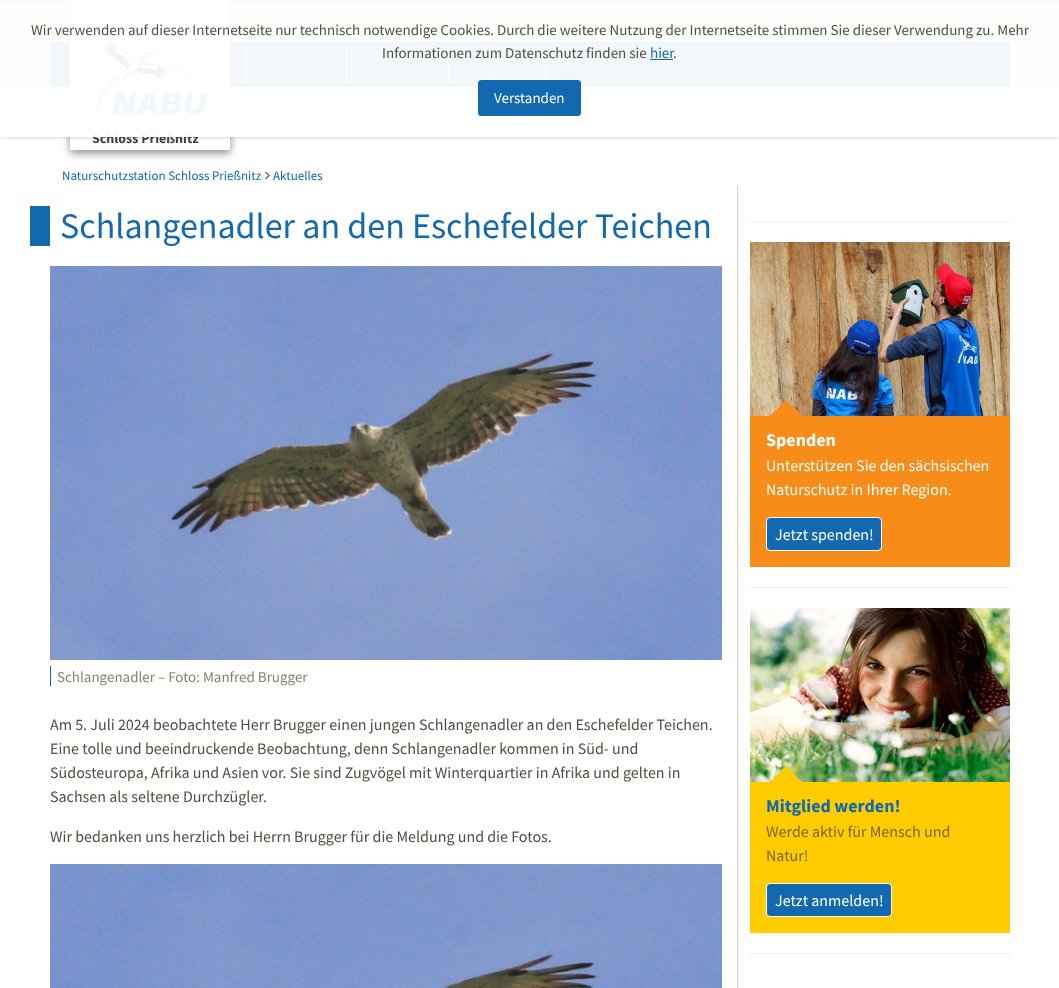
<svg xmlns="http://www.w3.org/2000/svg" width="1059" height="988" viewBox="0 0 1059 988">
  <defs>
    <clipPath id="clip1"><path d="M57 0H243V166H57ZM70-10H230V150H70Z" clip-rule="evenodd"/></clipPath>
    <filter id="blur1" x="-50%" y="-200%" width="200%" height="500%"><feGaussianBlur stdDeviation="4"/></filter>
    <clipPath id="clip2"><rect x="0" y="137" width="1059" height="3"/></clipPath>
    <filter id="blur2" x="-50%" y="-200%" width="200%" height="500%"><feGaussianBlur stdDeviation="2.5"/></filter>
  </defs>
  <rect width="100%" height="100%" fill="#ffffff"/>
  <rect x="0" y="2" width="1059" height="85" fill="#e3e2d4"/>
  <rect x="0" y="0" width="1059" height="2" fill="#b4b4b4"/>
  <rect x="50" y="42" width="960" height="45" fill="#1269b0"/>
  <rect x="246" y="47" width="1" height="36" fill="#ffffff"/>
  <rect x="346" y="47" width="1" height="36" fill="#ffffff"/>
  <rect x="448" y="47" width="1" height="36" fill="#ffffff"/>
  <rect x="545" y="47" width="1" height="36" fill="#ffffff"/>
  <g clip-path="url(#clip1)">
    <rect x="70" y="-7" width="160" height="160" fill="#888888" filter="url(#blur1)"/>
  </g>
  <image x="70" y="0" width="160" height="118" href="img1.png"/>
  <g clip-path="url(#clip2)">
    <rect x="0" y="0" width="1059" height="137" fill="#000000" fill-opacity="0.2" filter="url(#blur2)"/>
  </g>
  <text x="92" y="143" font-family="Source Sans Pro" font-size="14" font-weight="bold" fill="#444444">Schloss Prießnitz</text>
  <rect x="0" y="0" width="1059" height="137" fill="#ffffff" fill-opacity="0.95"/>
  <text x="31" y="35" font-family="Source Sans Pro" font-size="15" fill="#504f41">Wir verwenden auf dieser Internetseite nur technisch notwendige Cookies. Durch die weitere Nutzung der Internetseite stimmen Sie dieser Verwendung zu. Mehr</text>
  <text x="382" y="58" font-family="Source Sans Pro" font-size="15" fill="#504f41">Informationen zum Datenschutz finden sie</text>
  <text x="650" y="58" font-family="Source Sans Pro" font-size="15" fill="#1269b0">hier</text>
  <rect x="650" y="59" width="23" height="1" fill="#1269b0"/>
  <text x="673" y="58" font-family="Source Sans Pro" font-size="15" fill="#504f41">.</text>
  <rect x="477.5" y="79.5" width="104" height="37" rx="3.5" fill="#1269b0" stroke="#ffffff"/>
  <text x="494" y="103" font-family="Source Sans Pro" font-size="15" fill="#ffffff">Verstanden</text>
  <text x="62" y="180" font-family="Source Sans Pro" font-size="13" fill="#1269b0">Naturschutzstation Schloss Prießnitz</text>
  <image x="265" y="172" width="5" height="7" href="img2.png"/>
  <text x="273" y="180" font-family="Source Sans Pro" font-size="13" fill="#1269b0">Aktuelles</text>
  <rect x="30" y="206" width="20" height="40" fill="#1269b0"/>
  <text x="60" y="238" font-family="Source Sans Pro" font-size="36" fill="#1269b0">Schlangenadler an den Eschefelder Teichen</text>
  <image x="50" y="266" width="672" height="394" href="img3.png"/>
  <rect x="50" y="666" width="1" height="20" fill="#1269b0"/>
  <text x="57" y="682" font-family="Source Sans Pro" font-size="15" fill="#86846b">Schlangenadler – Foto: Manfred Brugger</text>
  <text x="50" y="730" font-family="Source Sans Pro" font-size="16" fill="#504f41">Am 5. Juli 2024 beobachtete Herr Brugger einen jungen Schlangenadler an den Eschefelder Teichen.</text>
  <text x="50" y="754" font-family="Source Sans Pro" font-size="16" fill="#504f41">Eine tolle und beeindruckende Beobachtung, denn Schlangenadler kommen in Süd- und</text>
  <text x="50" y="778" font-family="Source Sans Pro" font-size="16" fill="#504f41">Südosteuropa, Afrika und Asien vor. Sie sind Zugvögel mit Winterquartier in Afrika und gelten in</text>
  <text x="50" y="802" font-family="Source Sans Pro" font-size="16" fill="#504f41">Sachsen als seltene Durchzügler.</text>
  <text x="50" y="842" font-family="Source Sans Pro" font-size="16" fill="#504f41">Wir bedanken uns herzlich bei Herrn Brugger für die Meldung und die Fotos.</text>
  <image x="50" y="864" width="672" height="124" href="img4.png"/>
  <rect x="737" y="186" width="1" height="802" fill="#cccccc"/>
  <rect x="750" y="221" width="260" height="1" fill="#eeeeee"/>
  <image x="750" y="242" width="260" height="174" href="img5.png"/>
  <rect x="750" y="416" width="260" height="151" fill="#f88c18"/>
  <path d="M802 416H770L786 400Z" fill="#f88c18"/>
  <text x="766" y="446" font-family="Source Sans Pro" font-size="18" font-weight="bold" fill="#ffffff">Spenden</text>
  <text x="766" y="471" font-family="Source Sans Pro" font-size="16" fill="#ffffff">Unterstützen Sie den sächsischen</text>
  <text x="766" y="495" font-family="Source Sans Pro" font-size="16" fill="#ffffff">Naturschutz in Ihrer Region.</text>
  <rect x="766.5" y="517.5" width="115" height="33" rx="3.5" fill="#1269b0" stroke="#ffffff"/>
  <text x="775" y="540" font-family="Source Sans Pro" font-size="16" fill="#ffffff">Jetzt spenden!</text>
  <rect x="750" y="587" width="260" height="1" fill="#eeeeee"/>
  <image x="750" y="608" width="260" height="174" href="img6.png"/>
  <rect x="750" y="782" width="260" height="151" fill="#ffcc00"/>
  <path d="M802 782H770L786 766Z" fill="#ffcc00"/>
  <text x="766" y="812" font-family="Source Sans Pro" font-size="18" font-weight="bold" fill="#1269b0">Mitglied werden!</text>
  <text x="766" y="837" font-family="Source Sans Pro" font-size="16" fill="#816300">Werde aktiv für Mensch und</text>
  <text x="766" y="861" font-family="Source Sans Pro" font-size="16" fill="#816300">Natur!</text>
  <rect x="766.5" y="883.5" width="125" height="33" rx="3.5" fill="#1269b0" stroke="#ffffff"/>
  <text x="775" y="906" font-family="Source Sans Pro" font-size="16" fill="#ffffff">Jetzt anmelden!</text>
  <rect x="750" y="953" width="260" height="1" fill="#eeeeee"/>
</svg>
